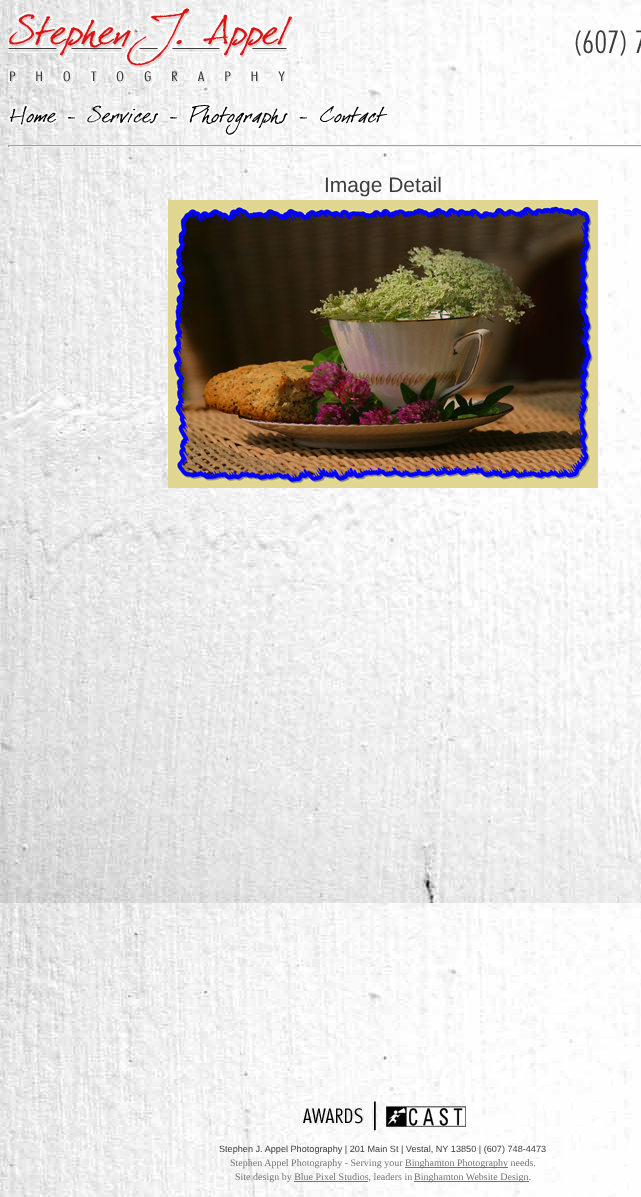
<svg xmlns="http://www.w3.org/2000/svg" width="641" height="1197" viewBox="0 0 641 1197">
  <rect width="100%" height="100%" fill="#ffffff"/>
  <image x="0" y="0" width="641" height="1197" href="img1.png"/>
  <image x="8" y="8" width="286" height="77" href="img2.png"/>
  <image x="575" y="28" width="66" height="28" href="img3.png"/>
  <image x="8" y="103" width="380" height="34" href="img4.png"/>
  <rect x="8" y="145" width="633" height="1" fill="#9f9f9f"/>
  <rect x="8" y="146" width="633" height="1" fill="#eeeeee"/>
  <rect x="8" y="145" width="1" height="2" fill="#9f9f9f"/>
  <text x="324" y="192" font-family="Liberation Sans" font-size="21" fill="#3c3c3c">Image Detail</text>
  <image x="168" y="200" width="430" height="288" href="img5.png"/>
  <image x="301" y="1100" width="77" height="32" href="img6.png"/>
  <image x="386" y="1106" width="80" height="21" href="img7.png"/>
  <text x="219" y="1152" font-family="Liberation Sans" font-size="9.15" fill="#3c3c3c">Stephen J. Appel Photography | 201 Main St | Vestal, NY 13850 | (607) 748-4473</text>
  <text x="230" y="1166" font-family="Liberation Serif" font-size="10" fill="#747474">Stephen Appel Photography - Serving your</text>
  <rect x="405" y="1167" width="103" height="1" fill="#747474"/>
  <text x="405" y="1166" font-family="Liberation Serif" font-size="10" fill="#747474">Binghamton Photography needs.</text>
  <text x="235" y="1180" font-family="Liberation Serif" font-size="10" fill="#747474">Site design by Blue Pixel Studios, leaders in</text>
  <rect x="414" y="1181" width="115" height="1" fill="#747474"/>
  <text x="414" y="1180" font-family="Liberation Serif" font-size="10" fill="#747474">Binghamton Website Design.</text>
  <rect x="294" y="1181" width="74" height="1" fill="#747474"/>
</svg>
